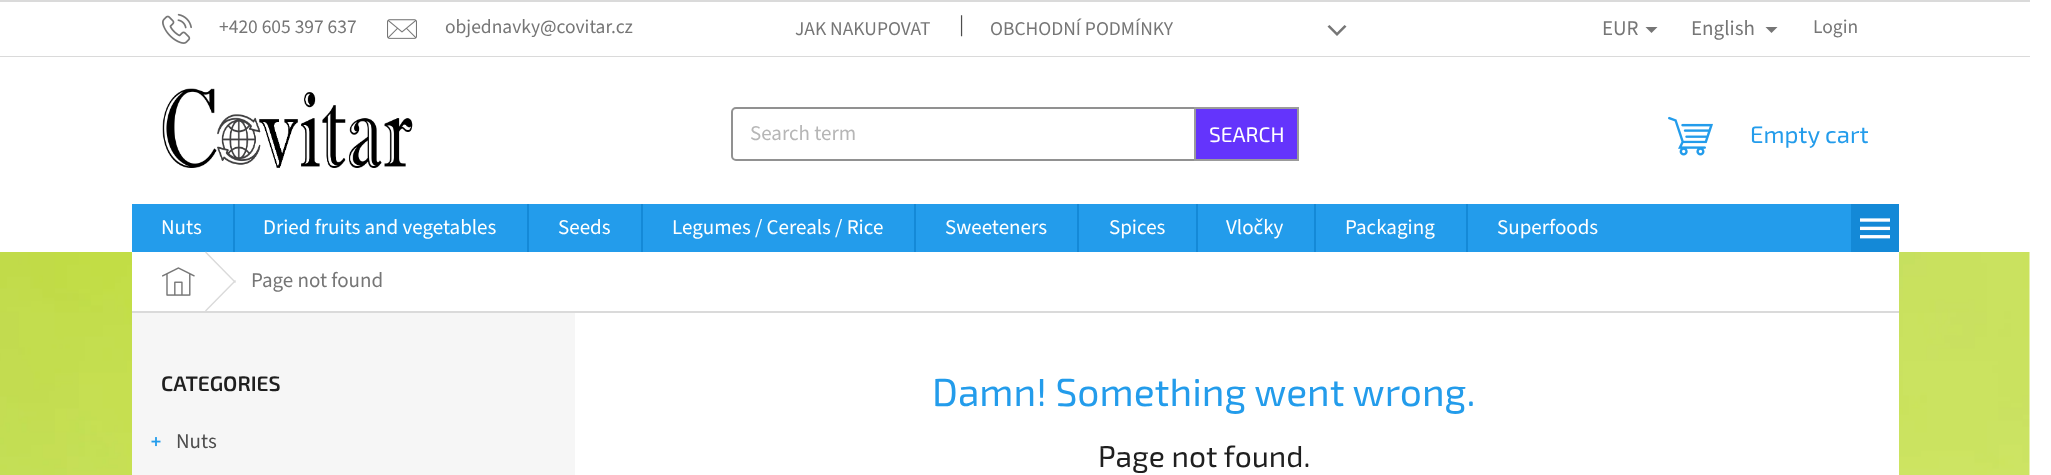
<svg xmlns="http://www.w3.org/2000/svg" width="2051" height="475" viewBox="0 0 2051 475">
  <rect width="100%" height="100%" fill="#ffffff"/>
  <image x="0" y="252" width="2030" height="223" href="img1.png"/>
  <rect x="0" y="0" width="2030" height="2" fill="#dadada"/>
  <rect x="0" y="56" width="2030" height="1" fill="#dadada"/>
  <image x="162" y="13" width="30" height="31" href="img2.png"/>
  <text x="219" y="33" font-family="'Source Sans 3'" font-size="19.5" fill="#767676">+420 605 397 637</text>
  <image x="387" y="19" width="30" height="20" href="img3.png"/>
  <text x="445" y="33" font-family="'Source Sans 3'" font-size="19.5" fill="#767676">objednavky@covitar.cz</text>
  <text x="795" y="35" font-family="'Source Sans 3'" font-size="19.5" fill="#767676">JAK NAKUPOVAT</text>
  <text x="959" y="31" font-family="'Source Sans 3'" font-size="21" fill="#4d4d4d">|</text>
  <text x="990" y="35" font-family="'Source Sans 3'" font-size="19.5" fill="#767676">OBCHODNÍ PODMÍNKY</text>
  <path d="M1327.5 26.5L1329.5 25L1337 32.5L1344.5 25L1346.5 26.5L1337 36Z" fill="#767676"/>
  <text x="1602" y="35" font-family="'Source Sans 3'" font-size="21" fill="#767676">EUR</text>
  <path d="M1645.5 27H1657.5L1651.5 33Z" fill="#767676"/>
  <text x="1691" y="35" font-family="'Source Sans 3'" font-size="21" fill="#767676">English</text>
  <path d="M1765.5 27H1777.5L1771.5 33Z" fill="#767676"/>
  <text x="1813" y="33" font-family="'Source Sans 3'" font-size="19.5" fill="#767676">Login</text>
  <image x="162" y="88" width="251" height="80" href="img4.png"/>
  <rect x="732" y="108" width="566" height="52" rx="4" fill="none" stroke="#919191" stroke-width="2"/>
  <text x="750" y="140" font-family="'Source Sans 3'" font-size="21" fill="#b6b6b6">Search term</text>
  <rect x="1195" y="108" width="103" height="52" fill="#6434fc" stroke="#9b9b9b" stroke-width="2"/>
  <text x="1209" y="142" font-family="'Exo 2'" font-size="21" fill="#ffffff">SEARCH</text>
  <image x="1668" y="116" width="45" height="40" href="img5.png"/>
  <text x="1750" y="143" font-family="'Exo 2'" font-size="24" fill="#239ceb">Empty cart</text>
  <rect x="132" y="204" width="1719" height="48" fill="#239ceb"/>
  <text x="161" y="234" font-family="'Source Sans 3'" font-size="21" fill="#ffffff">Nuts</text>
  <rect x="233" y="204" width="2" height="48" fill="#1489d7"/>
  <text x="263" y="234" font-family="'Source Sans 3'" font-size="21" fill="#ffffff">Dried fruits and vegetables</text>
  <rect x="527" y="204" width="2" height="48" fill="#1489d7"/>
  <text x="558" y="234" font-family="'Source Sans 3'" font-size="21" fill="#ffffff">Seeds</text>
  <rect x="641" y="204" width="2" height="48" fill="#1489d7"/>
  <text x="672" y="234" font-family="'Source Sans 3'" font-size="21" fill="#ffffff">Legumes / Cereals / Rice</text>
  <rect x="914" y="204" width="2" height="48" fill="#1489d7"/>
  <text x="945" y="234" font-family="'Source Sans 3'" font-size="21" fill="#ffffff">Sweeteners</text>
  <rect x="1077" y="204" width="2" height="48" fill="#1489d7"/>
  <text x="1109" y="234" font-family="'Source Sans 3'" font-size="21" fill="#ffffff">Spices</text>
  <rect x="1196" y="204" width="2" height="48" fill="#1489d7"/>
  <text x="1226" y="234" font-family="'Source Sans 3'" font-size="21" fill="#ffffff">Vločky</text>
  <rect x="1314" y="204" width="2" height="48" fill="#1489d7"/>
  <text x="1345" y="234" font-family="'Source Sans 3'" font-size="21" fill="#ffffff">Packaging</text>
  <rect x="1466" y="204" width="2" height="48" fill="#1489d7"/>
  <text x="1497" y="234" font-family="'Source Sans 3'" font-size="21" fill="#ffffff">Superfoods</text>
  <rect x="1851" y="204" width="48" height="48" fill="#1489d7"/>
  <image x="1860" y="218" width="30" height="21" href="img6.png"/>
  <rect x="132" y="252" width="1767" height="59" fill="#ffffff"/>
  <rect x="132" y="311" width="1767" height="2" fill="#dadada"/>
  <image x="162" y="267" width="33" height="29" href="img7.png"/>
  <path d="M205 252.5L206 251.5L236 282L235 283Z" fill="#dadada"/>
  <path d="M235 280L236 281L206 311.5L205 310.5Z" fill="#dadada"/>
  <text x="251" y="287" font-family="'Source Sans 3'" font-size="21" fill="#767676">Page not found</text>
  <rect x="575" y="313" width="1324" height="162" fill="#ffffff"/>
  <rect x="132" y="313" width="443" height="162" fill="#f6f6f6"/>
  <text x="161" y="391" font-family="'Exo 2'" font-size="21" font-weight="600" fill="#1f1f1f">CATEGORIES</text>
  <image x="151" y="437" width="10" height="10" href="img8.png"/>
  <text x="176" y="448" font-family="'Source Sans 3'" font-size="21" fill="#4d4d4d">Nuts</text>
  <text x="932" y="406" font-family="'Exo 2'" font-size="39" fill="#239ceb">Damn! Something went wrong.</text>
  <text x="1098" y="467" font-family="'Exo 2'" font-size="30" fill="#1f1f1f">Page not found.</text>
</svg>
